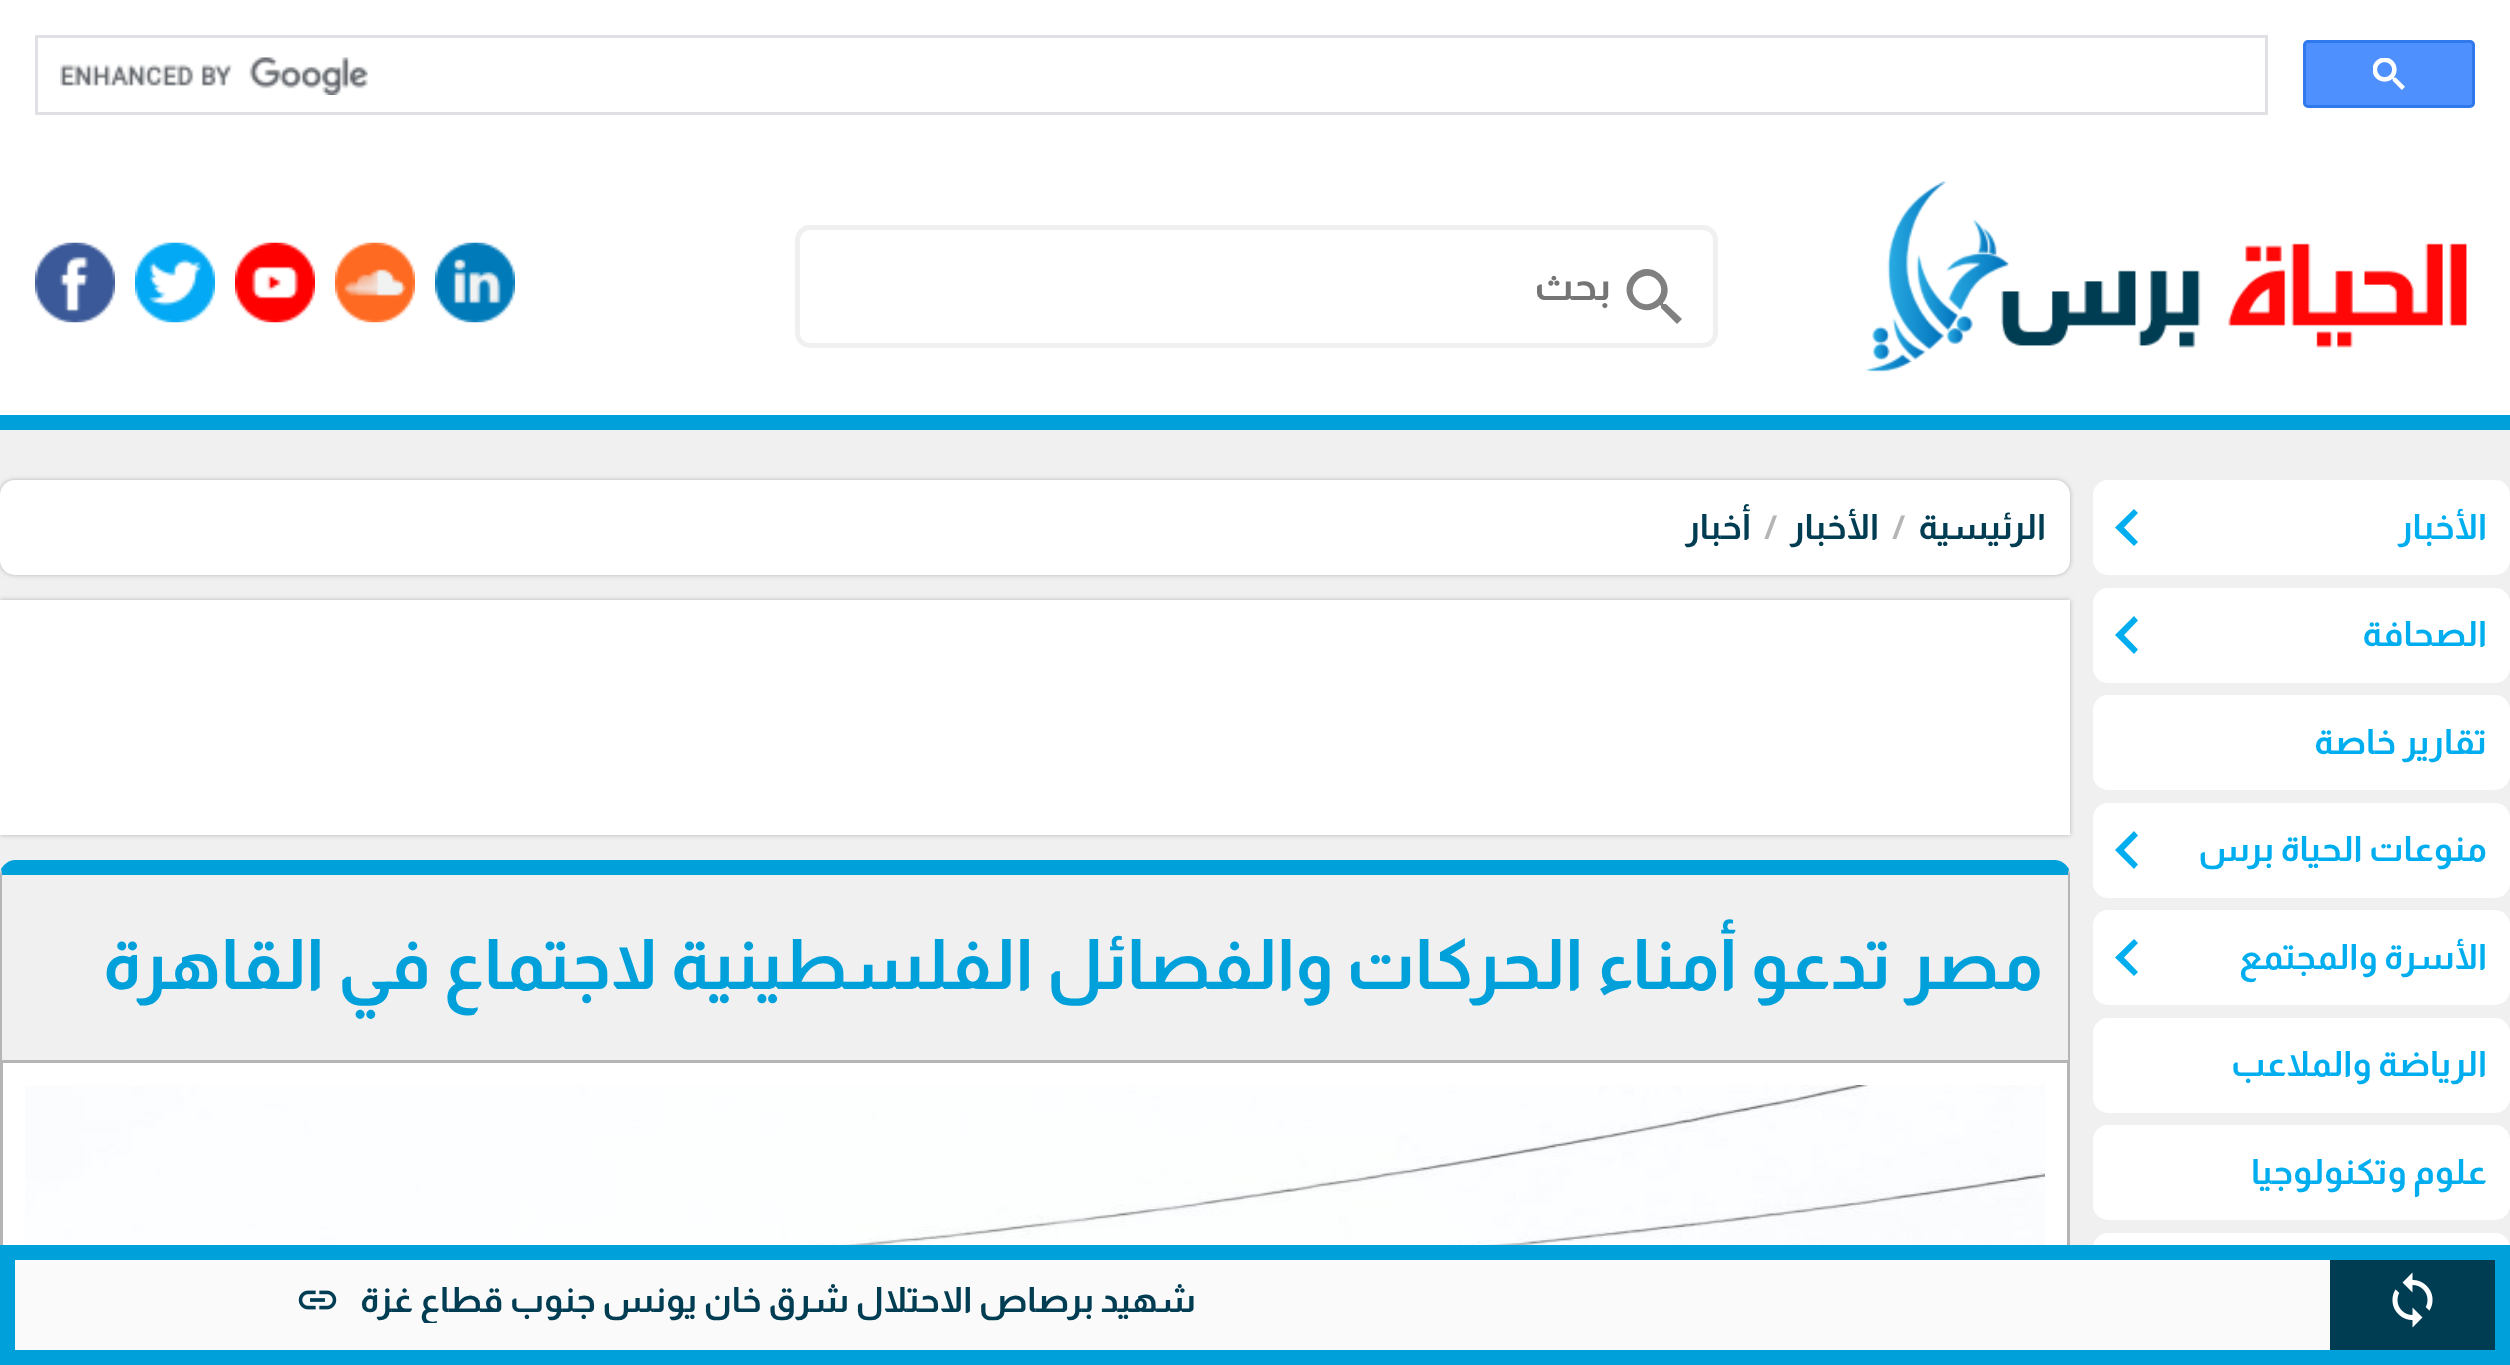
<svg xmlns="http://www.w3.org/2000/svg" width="2510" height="1365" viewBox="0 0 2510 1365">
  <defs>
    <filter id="blur1" x="-50%" y="-200%" width="200%" height="500%"><feGaussianBlur stdDeviation="2.5"/></filter>
    <clipPath id="clip1"><rect x="28" y="1278" width="2290" height="45"/></clipPath>
  </defs>
  <rect width="100%" height="100%" fill="#f0f0f0"/>
  <rect x="0" y="0" width="2510" height="415" fill="#ffffff"/>
  <rect x="2304.5" y="41.5" width="169" height="65" rx="3.5" fill="#4d90fe" stroke="#3079ed" stroke-width="3"/>
  <image x="2373" y="58" width="32" height="32" href="img1.png"/>
  <rect x="36.5" y="36.5" width="2230" height="77" fill="none" stroke="#dfe1e5" stroke-width="3"/>
  <image x="60" y="57" width="308" height="38" href="img2.png"/>
  <rect x="0" y="415" width="2510" height="15" fill="#00a0db"/>
  <image x="1865" y="181" width="602" height="191" href="img3.png"/>
  <rect x="797.5" y="227.5" width="918" height="118" rx="12.5" fill="none" stroke="#f0f0f0" stroke-width="5"/>
  <path d="M1637 300C1650 313 1670 293 1657 280C1644 267 1624 287 1637 300ZM1666 304L1682 319L1677 324L1661 308V306L1660 305C1641 322 1614 294 1633 275C1651 257 1679 283 1663 303V304Z" fill="#808080"/>
  <text x="1611" y="300" font-family="Almarai" font-size="40" font-weight="bold" direction="rtl" fill="#757575">بحث</text>
  <image x="435" y="242" width="80" height="81" href="img4.png"/>
  <image x="335" y="242" width="80" height="81" href="img5.png"/>
  <image x="235" y="242" width="80" height="81" href="img6.png"/>
  <image x="135" y="242" width="80" height="81" href="img7.png"/>
  <image x="35" y="242" width="80" height="81" href="img8.png"/>
  <rect x="2093" y="480" width="417" height="95" rx="15" fill="#ffffff"/>
  <text x="2487" y="539" font-family="Almarai" font-size="35" font-weight="bold" direction="rtl" fill="#00aeef">الأخبار</text>
  <path d="M2138 513L2124 527.5L2138 542L2134 546L2115 527.5L2134 509Z" fill="#00aeef"/>
  <rect x="2093" y="588" width="417" height="95" rx="15" fill="#ffffff"/>
  <text x="2487" y="646" font-family="Almarai" font-size="35" font-weight="bold" direction="rtl" fill="#00aeef">الصحافة</text>
  <path d="M2138 620.5L2124 635L2138 649.5L2134 654L2115 635L2134 616Z" fill="#00aeef"/>
  <rect x="2093" y="695" width="417" height="95" rx="15" fill="#ffffff"/>
  <text x="2487" y="754" font-family="Almarai" font-size="35" font-weight="bold" direction="rtl" fill="#00aeef">تقارير خاصة</text>
  <rect x="2093" y="803" width="417" height="95" rx="15" fill="#ffffff"/>
  <text x="2487" y="861" font-family="Almarai" font-size="35" font-weight="bold" direction="rtl" fill="#00aeef">منوعات الحياة برس</text>
  <path d="M2138 835.5L2124 850L2138 864.5L2134 869L2115 850L2134 831Z" fill="#00aeef"/>
  <rect x="2093" y="910" width="417" height="95" rx="15" fill="#ffffff"/>
  <text x="2487" y="969" font-family="Almarai" font-size="35" font-weight="bold" direction="rtl" fill="#00aeef">الأسرة والمجتمع</text>
  <path d="M2138 943L2124 957.5L2138 972L2134 976L2115 957.5L2134 939Z" fill="#00aeef"/>
  <rect x="2093" y="1018" width="417" height="95" rx="15" fill="#ffffff"/>
  <text x="2487" y="1076" font-family="Almarai" font-size="35" font-weight="bold" direction="rtl" fill="#00aeef">الرياضة والملاعب</text>
  <rect x="2093" y="1125" width="417" height="95" rx="15" fill="#ffffff"/>
  <text x="2487" y="1184" font-family="Almarai" font-size="35" font-weight="bold" direction="rtl" fill="#00aeef">علوم وتكنولوجيا</text>
  <rect x="2093" y="1233" width="417" height="95" rx="15" fill="#ffffff"/>
  <rect x="0" y="480" width="2070" height="95" rx="15" fill="#b5b5b5" filter="url(#blur1)"/>
  <rect x="0" y="480" width="2070" height="95" rx="15" fill="#ffffff"/>
  <text x="2046" y="539" font-family="Almarai" font-size="35" font-weight="bold" direction="rtl" fill="#003c52">الرئيسية</text>
  <text x="1892" y="539" font-family="Almarai" font-size="35" font-weight="bold" fill="#b5b5b5">/</text>
  <text x="1879" y="539" font-family="Almarai" font-size="35" font-weight="bold" direction="rtl" fill="#003c52">الأخبار</text>
  <text x="1764" y="539" font-family="Almarai" font-size="35" font-weight="bold" fill="#b5b5b5">/</text>
  <text x="1751" y="539" font-family="Almarai" font-size="35" font-weight="bold" direction="rtl" fill="#003c52">أخبار</text>
  <rect x="0" y="600" width="2070" height="235" fill="#b5b5b5" filter="url(#blur1)"/>
  <rect x="0" y="600" width="2070" height="235" fill="#ffffff"/>
  <path d="M15 860C9 860 4 864 1 869L2 875H2068L2069 869C2066 864 2061 860 2055 860Z" fill="#00a0db"/>
  <path d="M2068 1060H2070V875C2070 873 2069 871 2069 869L2068 875Z" fill="#b5b5b5"/>
  <path d="M0 1060H2V875L1 869C1 871 0 873 0 875Z" fill="#b5b5b5"/>
  <text x="2043" y="989" font-family="Almarai" font-size="70" font-weight="bold" direction="rtl" fill="#00a0db">مصر تدعو أمناء الحركات والفصائل الفلسطينية لاجتماع في القاهرة</text>
  <rect x="3" y="1063" width="2064" height="182" fill="#ffffff"/>
  <rect x="1.5" y="1061.5" width="2067" height="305" fill="none" stroke="#b5b5b5" stroke-width="3"/>
  <image x="25" y="1085" width="2020" height="160" href="img9.png"/>
  <rect x="0" y="1245" width="2510" height="120" fill="#00a0db"/>
  <rect x="2330" y="1260" width="165" height="90" fill="#003c52"/>
  <image x="2392" y="1272" width="41" height="56" href="img10.png"/>
  <rect x="15" y="1260" width="2315" height="90" fill="#fafafa"/>
  <g clip-path="url(#clip1)">
    <text x="1196" y="1312" font-family="Almarai" font-size="35" font-weight="bold" direction="rtl" fill="#003c52">شهيد برصاص الاحتلال شرق خان يونس جنوب قطاع غزة</text>
  </g>
  <image x="298" y="1290" width="39" height="20" href="img11.png"/>
</svg>
